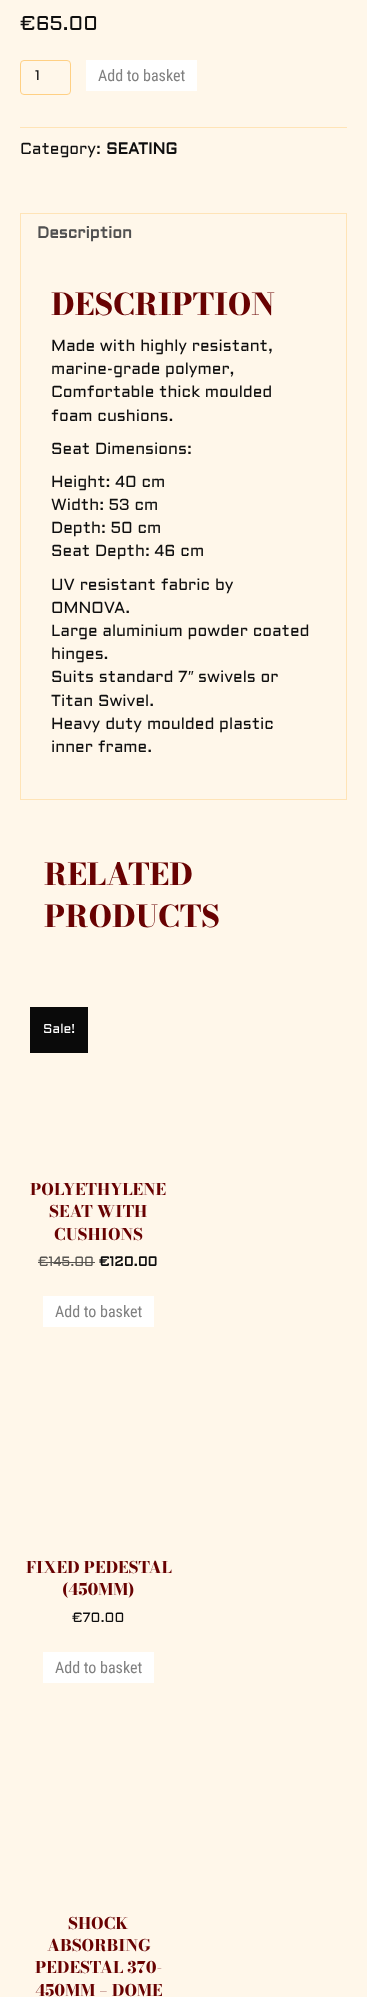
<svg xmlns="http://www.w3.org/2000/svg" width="367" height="1997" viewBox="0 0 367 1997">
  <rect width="100%" height="100%" fill="#fff7ea"/>
  <text x="20" y="30" font-family="Aldrich" font-size="20" fill="#0f0f0f">€65.00</text>
  <rect x="20.5" y="60.5" width="50" height="34" rx="3.5" fill="none" stroke="#ffd084"/>
  <text x="35" y="80" font-family="Aldrich" font-size="14" fill="#0f0f0f">1</text>
  <rect x="86" y="60" width="111" height="31" fill="#ffffff"/>
  <text x="98" y="81" font-family="Roboto Condensed" font-size="16" fill="#808080">Add to basket</text>
  <rect x="20" y="127" width="327" height="1" fill="#ffe4b7"/>
  <text x="20" y="154" font-family="Aldrich" font-size="16" fill="#0f0f0f">Category:</text>
  <text x="106" y="154" font-family="Aldrich" font-size="16" font-weight="bold" fill="#0f0f0f">SEATING</text>
  <rect x="20" y="213" width="327" height="1" fill="#ffe4b7"/>
  <rect x="346" y="213" width="1" height="40" fill="#ffe4b7"/>
  <rect x="20" y="213" width="1" height="40" fill="#ffe4b7"/>
  <text x="37" y="238" font-family="Aldrich" font-size="16" font-weight="bold" fill="#515151">Description</text>
  <rect x="346" y="253" width="1" height="547" fill="#ffe4b7"/>
  <rect x="20" y="799" width="327" height="1" fill="#ffe4b7"/>
  <rect x="20" y="253" width="1" height="547" fill="#ffe4b7"/>
  <text x="51" y="315" font-family="Bodoni Moda" font-size="30" font-weight="800" fill="#680202">DESCRIPTION</text>
  <text x="51" y="351" font-family="Aldrich" font-size="16" fill="#0f0f0f">Made with highly resistant,</text>
  <text x="51" y="374" font-family="Aldrich" font-size="16" fill="#0f0f0f">marine-grade polymer,</text>
  <text x="51" y="397" font-family="Aldrich" font-size="16" fill="#0f0f0f">Comfortable thick moulded</text>
  <text x="51" y="421" font-family="Aldrich" font-size="16" fill="#0f0f0f">foam cushions.</text>
  <text x="51" y="454" font-family="Aldrich" font-size="16" fill="#0f0f0f">Seat Dimensions:</text>
  <text x="51" y="487" font-family="Aldrich" font-size="16" fill="#0f0f0f">Height: 40 cm</text>
  <text x="51" y="510" font-family="Aldrich" font-size="16" fill="#0f0f0f">Width: 53 cm</text>
  <text x="51" y="533" font-family="Aldrich" font-size="16" fill="#0f0f0f">Depth: 50 cm</text>
  <text x="51" y="556" font-family="Aldrich" font-size="16" fill="#0f0f0f">Seat Depth: 46 cm</text>
  <text x="51" y="590" font-family="Aldrich" font-size="16" fill="#0f0f0f">UV resistant fabric by</text>
  <text x="51" y="613" font-family="Aldrich" font-size="16" fill="#0f0f0f">OMNOVA.</text>
  <text x="51" y="636" font-family="Aldrich" font-size="16" fill="#0f0f0f">Large aluminium powder coated</text>
  <text x="51" y="659" font-family="Aldrich" font-size="16" fill="#0f0f0f">hinges.</text>
  <text x="51" y="682" font-family="Aldrich" font-size="16" fill="#0f0f0f">Suits standard 7</text>
  <text x="188" y="682" font-family="Liberation Sans" font-size="16" fill="#0f0f0f">″</text>
  <text x="198" y="682" font-family="Aldrich" font-size="16" fill="#0f0f0f">swivels or</text>
  <text x="51" y="706" font-family="Aldrich" font-size="16" fill="#0f0f0f">Titan Swivel.</text>
  <text x="51" y="729" font-family="Aldrich" font-size="16" fill="#0f0f0f">Heavy duty moulded plastic</text>
  <text x="51" y="752" font-family="Aldrich" font-size="16" fill="#0f0f0f">inner frame.</text>
  <text x="44" y="885" font-family="Bodoni Moda" font-size="30" font-weight="800" fill="#680202">RELATED</text>
  <text x="44" y="927" font-family="Bodoni Moda" font-size="30" font-weight="800" fill="#680202">PRODUCTS</text>
  <rect x="30" y="1007" width="58" height="46" fill="#0a0a0a"/>
  <text x="43" y="1033" font-family="Aldrich" font-size="13" fill="#ffffff">Sale!</text>
  <text x="30" y="1195" font-family="Bodoni Moda" font-size="16" font-weight="800" fill="#680202">POLYETHYLENE</text>
  <text x="49" y="1217" font-family="Bodoni Moda" font-size="16" font-weight="800" fill="#680202">SEAT WITH</text>
  <text x="54" y="1240" font-family="Bodoni Moda" font-size="16" font-weight="800" fill="#680202">CUSHIONS</text>
  <text x="38" y="1266" font-family="Aldrich" font-size="13.5" fill="#575551">€145.00</text>
  <rect x="38" y="1262" width="57" height="1" fill="#575551"/>
  <text x="99" y="1266" font-family="Aldrich" font-size="13.5" font-weight="bold" fill="#0f0f0f">€120.00</text>
  <rect x="43" y="1296" width="111" height="31" fill="#ffffff"/>
  <text x="55" y="1317" font-family="Roboto Condensed" font-size="16" fill="#808080">Add to basket</text>
  <text x="26" y="1573" font-family="Bodoni Moda" font-size="16" font-weight="800" fill="#680202">FIXED PEDESTAL</text>
  <text x="62" y="1595" font-family="Bodoni Moda" font-size="16" font-weight="800" fill="#680202">(450MM)</text>
  <text x="72" y="1622" font-family="Aldrich" font-size="13.5" fill="#0f0f0f">€70.00</text>
  <rect x="43" y="1652" width="111" height="31" fill="#ffffff"/>
  <text x="55" y="1673" font-family="Roboto Condensed" font-size="16" fill="#808080">Add to basket</text>
  <text x="68" y="1929" font-family="Bodoni Moda" font-size="16" font-weight="800" fill="#680202">SHOCK</text>
  <text x="47" y="1951" font-family="Bodoni Moda" font-size="16" font-weight="800" fill="#680202">ABSORBING</text>
  <text x="35" y="1973" font-family="Bodoni Moda" font-size="16" font-weight="800" fill="#680202">PEDESTAL 370-</text>
  <text x="35" y="1996" font-family="Bodoni Moda" font-size="16" font-weight="800" fill="#680202">450MM – DOME</text>
</svg>
